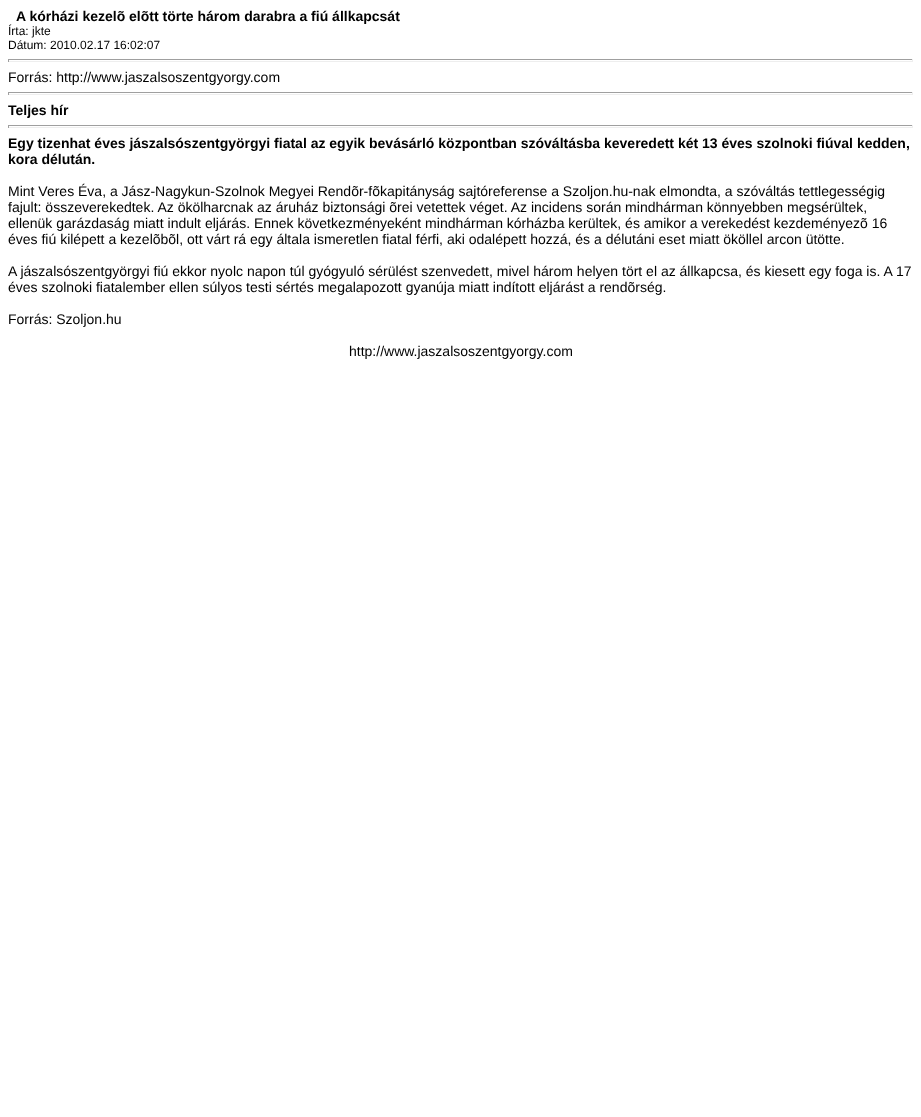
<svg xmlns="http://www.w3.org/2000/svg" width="921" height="1117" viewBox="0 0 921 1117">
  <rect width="100%" height="100%" fill="#ffffff"/>
  <text x="16" y="21" font-family="Liberation Sans" font-size="14" font-weight="bold" fill="#000000">A kórházi kezelõ elõtt törte három darabra a fiú állkapcsát</text>
  <text x="8" y="35" font-family="Liberation Sans" font-size="12" fill="#000000">Írta: jkte</text>
  <text x="8" y="49" font-family="Liberation Sans" font-size="12" fill="#000000">Dátum: 2010.02.17 16:02:07</text>
  <rect x="8" y="59" width="905" height="1" fill="#9f9f9f"/>
  <rect x="912" y="59" width="1" height="3" fill="#eeeeee"/>
  <rect x="8" y="61" width="905" height="1" fill="#eeeeee"/>
  <rect x="8" y="59" width="1" height="3" fill="#9f9f9f"/>
  <text x="8" y="82" font-family="Liberation Sans" font-size="14" fill="#000000">Forrás: http://www.jaszalsoszentgyorgy.com</text>
  <rect x="8" y="92" width="905" height="1" fill="#9f9f9f"/>
  <rect x="912" y="92" width="1" height="3" fill="#eeeeee"/>
  <rect x="8" y="94" width="905" height="1" fill="#eeeeee"/>
  <rect x="8" y="92" width="1" height="3" fill="#9f9f9f"/>
  <text x="8" y="115" font-family="Liberation Sans" font-size="14" font-weight="bold" fill="#000000">Teljes hír</text>
  <rect x="8" y="125" width="905" height="1" fill="#9f9f9f"/>
  <rect x="912" y="125" width="1" height="3" fill="#eeeeee"/>
  <rect x="8" y="127" width="905" height="1" fill="#eeeeee"/>
  <rect x="8" y="125" width="1" height="3" fill="#9f9f9f"/>
  <text x="8" y="148" font-family="Liberation Sans" font-size="14" font-weight="bold" fill="#000000">Egy tizenhat éves jászalsószentgyörgyi fiatal az egyik bevásárló központban szóváltásba keveredett két 13 éves szolnoki fiúval kedden,</text>
  <text x="8" y="164" font-family="Liberation Sans" font-size="14" font-weight="bold" fill="#000000">kora délután.</text>
  <text x="8" y="196" font-family="Liberation Sans" font-size="14" fill="#000000">Mint Veres Éva, a Jász-Nagykun-Szolnok Megyei Rendõr-fõkapitányság sajtóreferense a Szoljon.hu-nak elmondta, a szóváltás tettlegességig</text>
  <text x="8" y="212" font-family="Liberation Sans" font-size="14" fill="#000000">fajult: összeverekedtek. Az ökölharcnak az áruház biztonsági õrei vetettek véget. Az incidens során mindhárman könnyebben megsérültek,</text>
  <text x="8" y="228" font-family="Liberation Sans" font-size="14" fill="#000000">ellenük garázdaság miatt indult eljárás. Ennek következményeként mindhárman kórházba kerültek, és amikor a verekedést kezdeményezõ 16</text>
  <text x="8" y="244" font-family="Liberation Sans" font-size="14" fill="#000000">éves fiú kilépett a kezelõbõl, ott várt rá egy általa ismeretlen fiatal férfi, aki odalépett hozzá, és a délutáni eset miatt ököllel arcon ütötte.</text>
  <text x="8" y="276" font-family="Liberation Sans" font-size="14" fill="#000000">A jászalsószentgyörgyi fiú ekkor nyolc napon túl gyógyuló sérülést szenvedett, mivel három helyen tört el az állkapcsa, és kiesett egy foga is. A 17</text>
  <text x="8" y="292" font-family="Liberation Sans" font-size="14" fill="#000000">éves szolnoki fiatalember ellen súlyos testi sértés megalapozott gyanúja miatt indított eljárást a rendõrség.</text>
  <text x="8" y="324" font-family="Liberation Sans" font-size="14" fill="#000000">Forrás: Szoljon.hu</text>
  <text x="349" y="356" font-family="Liberation Sans" font-size="14" fill="#000000">http://www.jaszalsoszentgyorgy.com</text>
</svg>
